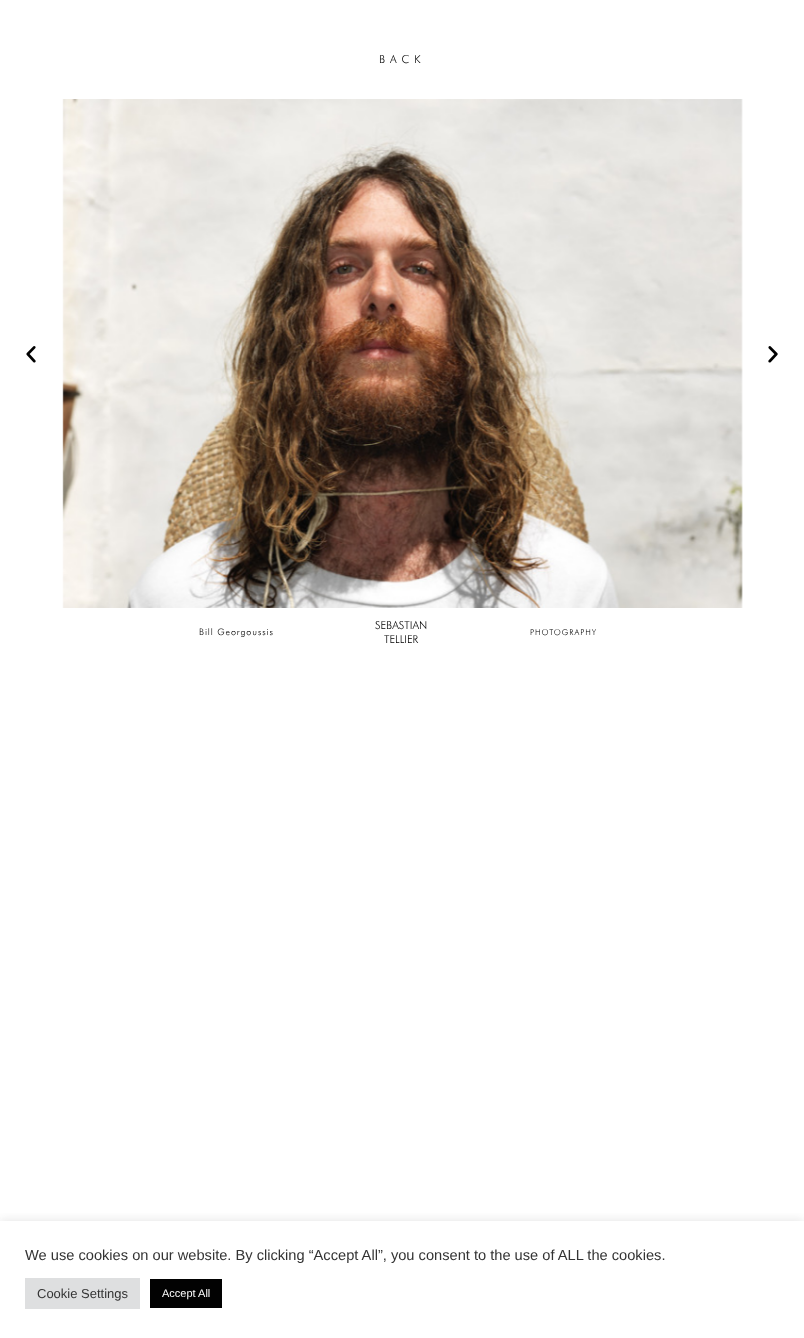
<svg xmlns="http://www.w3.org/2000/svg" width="804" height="1338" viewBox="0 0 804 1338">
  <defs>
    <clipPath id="clip1"><rect x="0" y="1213" width="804" height="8"/></clipPath>
    <filter id="blur1" x="-50%" y="-200%" width="200%" height="500%"><feGaussianBlur stdDeviation="5"/></filter>
  </defs>
  <rect width="100%" height="100%" fill="#ffffff"/>
  <text x="379" y="63" font-family="Futura" font-size="11" font-weight="300" letter-spacing="5" fill="#000000">BACK</text>
  <image x="26" y="346" width="10" height="17" href="img1.png"/>
  <image x="62" y="99" width="681" height="509" href="img2.png"/>
  <image x="768" y="346" width="10" height="17" href="img3.png"/>
  <text x="199" y="635" font-family="Futura" font-size="9" font-weight="300" letter-spacing="0.9" fill="#000000">Bill Georgoussis</text>
  <text x="375" y="629" font-family="Futura" font-size="11" font-weight="300" fill="#000000">SEBASTIAN</text>
  <text x="384" y="643" font-family="Futura" font-size="11" font-weight="300" fill="#000000">TELLIER</text>
  <text x="530" y="635" font-family="Futura" font-size="8" font-weight="300" letter-spacing="1" fill="#000000">PHOTOGRAPHY</text>
  <g clip-path="url(#clip1)">
    <rect x="0" y="1220" width="804" height="117" fill="#acabab" fill-opacity="0.3" filter="url(#blur1)"/>
  </g>
  <text x="25" y="1260" font-family="Liberation Sans" font-size="14.65" fill="#333333">We use cookies on our website. By clicking “Accept All”, you consent to the use of ALL the cookies.</text>
  <rect x="25" y="1278" width="115" height="31" fill="#dedfe0"/>
  <text x="37" y="1298" font-family="Liberation Sans" font-size="13" fill="#333333">Cookie Settings</text>
  <rect x="150" y="1279" width="72" height="29" fill="#020202"/>
  <text x="162" y="1297" font-family="Liberation Sans" font-size="11" fill="#ffffff">Accept All</text>
</svg>
